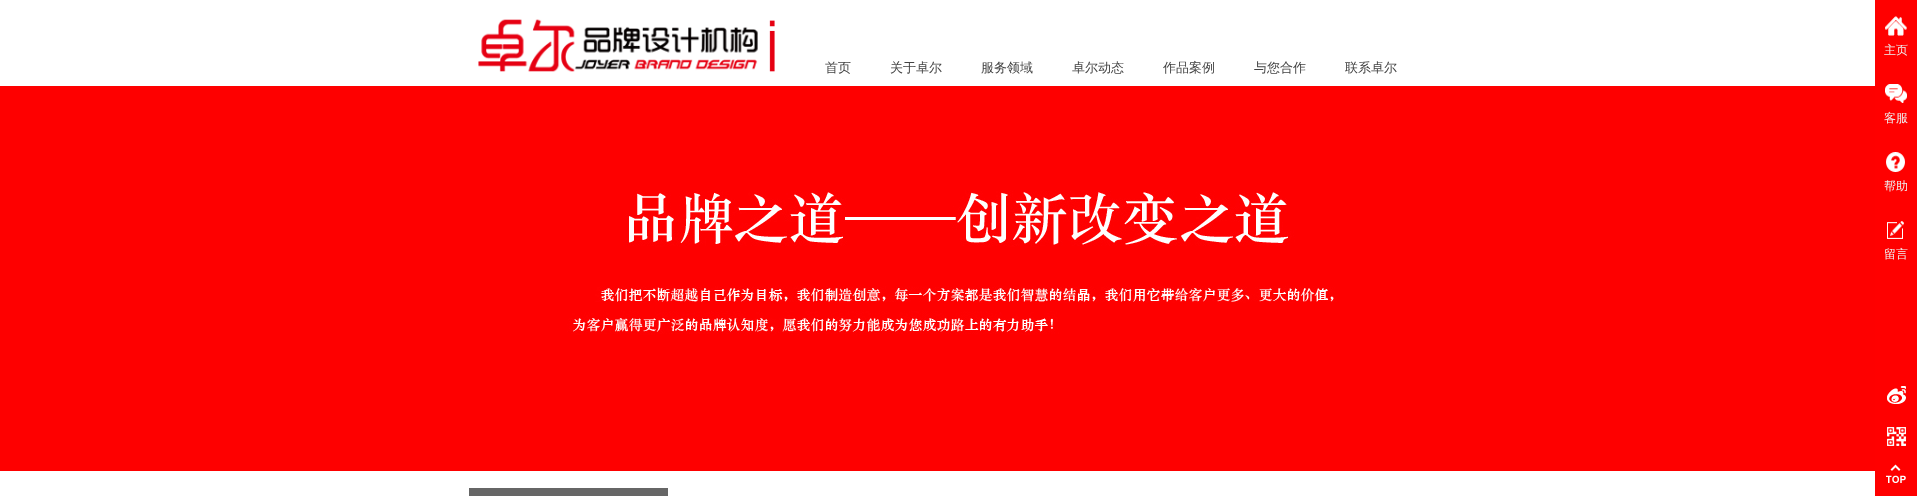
<svg xmlns="http://www.w3.org/2000/svg" width="1917" height="496" viewBox="0 0 1917 496">
  <rect width="100%" height="100%" fill="#ffffff"/>
  <image x="478" y="19" width="297" height="53" href="img1.png"/>
  <text x="825" y="72" font-family="WenQuanYi Zen Hei" font-size="13" font-weight="500" fill="#434343">首页</text>
  <text x="890" y="72" font-family="WenQuanYi Zen Hei" font-size="13" font-weight="500" fill="#434343">关于卓尔</text>
  <text x="981" y="72" font-family="WenQuanYi Zen Hei" font-size="13" font-weight="500" fill="#434343">服务领域</text>
  <text x="1072" y="72" font-family="WenQuanYi Zen Hei" font-size="13" font-weight="500" fill="#434343">卓尔动态</text>
  <text x="1163" y="72" font-family="WenQuanYi Zen Hei" font-size="13" font-weight="500" fill="#434343">作品案例</text>
  <text x="1254" y="72" font-family="WenQuanYi Zen Hei" font-size="13" font-weight="500" fill="#434343">与您合作</text>
  <text x="1345" y="72" font-family="WenQuanYi Zen Hei" font-size="13" font-weight="500" fill="#434343">联系卓尔</text>
  <image x="0" y="86" width="1875" height="385" href="img2.png"/>
  <rect x="469" y="488" width="199" height="8" fill="#666666"/>
  <rect x="1875" y="0" width="42" height="496" fill="#ff0000"/>
  <image x="1885" y="16" width="22" height="20" href="img3.png"/>
  <text x="1884" y="54" font-family="WenQuanYi Zen Hei" font-size="12" font-weight="500" fill="#efefef">主页</text>
  <image x="1885" y="84" width="22" height="19" href="img4.png"/>
  <text x="1884" y="122" font-family="WenQuanYi Zen Hei" font-size="12" font-weight="500" fill="#efefef">客服</text>
  <image x="1886" y="152" width="19" height="20" href="img5.png"/>
  <text x="1884" y="190" font-family="WenQuanYi Zen Hei" font-size="12" font-weight="500" fill="#efefef">帮助</text>
  <image x="1887" y="221" width="17" height="18" href="img6.png"/>
  <text x="1884" y="258" font-family="WenQuanYi Zen Hei" font-size="12" font-weight="500" fill="#efefef">留言</text>
  <image x="1887" y="386" width="19" height="18" href="img7.png"/>
  <image x="1887" y="427" width="19" height="19" href="img8.png"/>
  <image x="1886" y="464" width="20" height="19" href="img9.png"/>
</svg>
